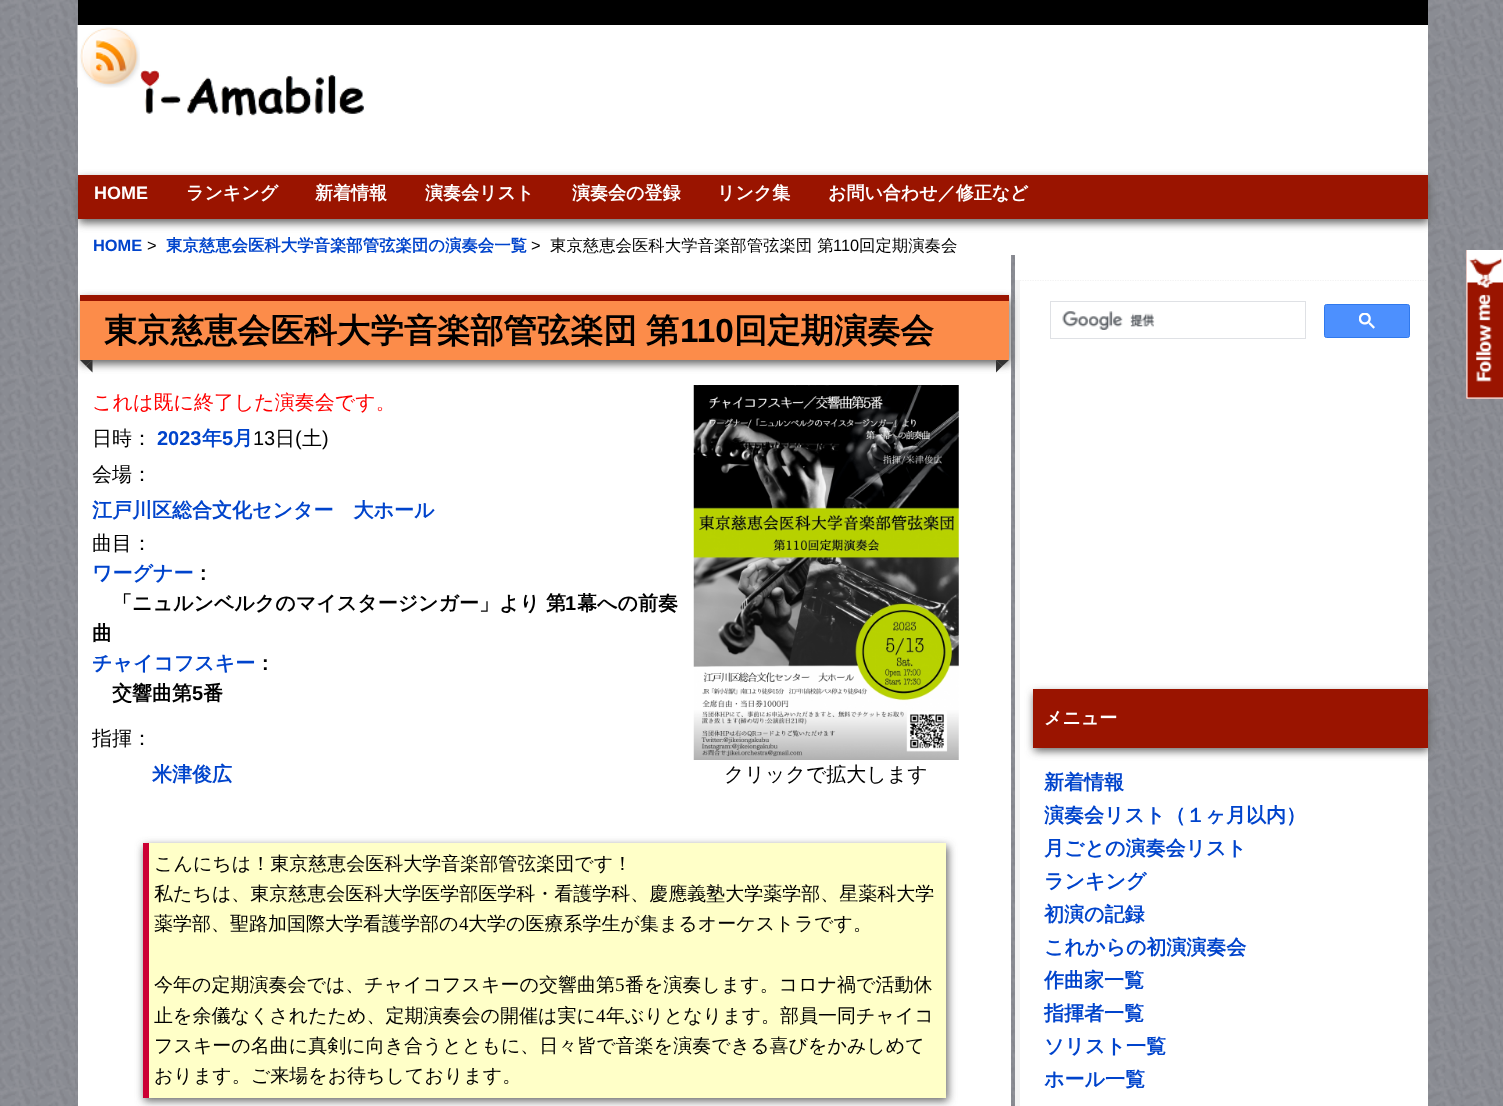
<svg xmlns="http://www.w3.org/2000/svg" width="1503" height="1106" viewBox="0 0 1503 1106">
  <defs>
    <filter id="blur1" x="-50%" y="-200%" width="200%" height="500%"><feGaussianBlur stdDeviation="4.5"/></filter>
  </defs>
  <rect width="100%" height="100%" fill="#ffffff"/>
  <image x="0" y="0" width="1503" height="1106" href="img1.png"/>
  <rect x="78" y="25" width="1350" height="230" fill="#ffffff"/>
  <rect x="78" y="0" width="1350" height="25" fill="#000000"/>
  <image x="77" y="25" width="63" height="63" href="img2.png"/>
  <image x="140" y="70" width="224" height="47" href="img3.png"/>
  <rect x="79" y="179" width="1350" height="44" fill="#666666" filter="url(#blur1)"/>
  <rect x="78" y="175" width="1350" height="44" fill="#9a1400"/>
  <text x="94" y="199" font-family="Liberation Sans" font-size="18" font-weight="bold" fill="#ffffff">HOME</text>
  <text x="186" y="199" font-family="WenQuanYi Zen Hei" font-size="18" font-weight="bold" fill="#ffffff">ランキング</text>
  <text x="315" y="199" font-family="WenQuanYi Zen Hei" font-size="18" font-weight="bold" fill="#ffffff">新着情報</text>
  <text x="425" y="199" font-family="WenQuanYi Zen Hei" font-size="18" font-weight="bold" fill="#ffffff">演奏会リスト</text>
  <text x="572" y="199" font-family="WenQuanYi Zen Hei" font-size="18" font-weight="bold" fill="#ffffff">演奏会の登録</text>
  <text x="717" y="199" font-family="WenQuanYi Zen Hei" font-size="18" font-weight="bold" fill="#ffffff">リンク集</text>
  <text x="828" y="199" font-family="WenQuanYi Zen Hei" font-size="18" font-weight="bold" fill="#ffffff">お問い合わせ／修正など</text>
  <text x="93" y="251" font-family="Liberation Sans" font-size="16.4" font-weight="bold" fill="#0044cc">HOME</text>
  <text x="147" y="251" font-family="Liberation Sans" font-size="16.4" fill="#000000">&gt;</text>
  <text x="166" y="251" font-family="WenQuanYi Zen Hei" font-size="16.4" font-weight="bold" fill="#0044cc">東京慈恵会医科大学音楽部管弦楽団の演奏会一覧</text>
  <text x="531" y="251" font-family="Liberation Sans" font-size="16.4" fill="#000000">&gt;</text>
  <text x="550" y="251" font-family="WenQuanYi Zen Hei" font-size="16.4" font-weight="500" fill="#000000">東京慈恵会医科大学音楽部管弦楽団 第</text>
  <text x="833" y="251" font-family="Liberation Sans" font-size="16.4" fill="#000000">110</text>
  <text x="859" y="251" font-family="WenQuanYi Zen Hei" font-size="16.4" font-weight="500" fill="#000000">回定期演奏会</text>
  <rect x="78" y="255" width="933" height="851" fill="#ffffff"/>
  <rect x="1015" y="255" width="413" height="851" fill="#ffffff"/>
  <path d="M1015 280.5H1427.5" fill="none" stroke="#f2f2f2" stroke-width="1.2" stroke-dasharray="1.25 1.25"/>
  <rect x="1015" y="280" width="5" height="826" fill="#f2f2f2"/>
  <rect x="81" y="299" width="929" height="65" fill="#666666" filter="url(#blur1)"/>
  <rect x="80" y="301" width="929" height="59" fill="#fc8c4a"/>
  <rect x="80" y="295" width="929" height="6" fill="#9a1400"/>
  <text x="104" y="342" word-spacing="-1" font-family="WenQuanYi Zen Hei" font-size="33.3" font-weight="bold" fill="#000000">東京慈恵会医科大学音楽部管弦楽団 第</text>
  <text x="680" y="342" font-family="Liberation Sans" font-size="33.3" font-weight="bold" fill="#000000">110</text>
  <text x="734" y="342" font-family="WenQuanYi Zen Hei" font-size="33.3" font-weight="bold" fill="#000000">回定期演奏会</text>
  <path d="M80 360H92.5L86 366Z" fill="#333333"/>
  <path d="M92.5 360V372.5L86 366Z" fill="#333333"/>
  <path d="M996 360H1009L1002.5 366Z" fill="#333333"/>
  <path d="M996 372.5V360L1002.5 366Z" fill="#333333"/>
  <text x="92" y="409" font-family="WenQuanYi Zen Hei" font-size="20" font-weight="500" fill="#ff0000">これは既に終了した演奏会です。</text>
  <text x="92" y="445" font-family="WenQuanYi Zen Hei" font-size="20" font-weight="500" fill="#000000">日時：</text>
  <text x="157" y="445" font-family="Liberation Sans" font-size="20" font-weight="bold" fill="#0044cc">2023</text>
  <text x="202" y="445" font-family="WenQuanYi Zen Hei" font-size="20" font-weight="bold" fill="#0044cc">年</text>
  <text x="222" y="445" font-family="Liberation Sans" font-size="20" font-weight="bold" fill="#0044cc">5</text>
  <text x="233" y="445" font-family="WenQuanYi Zen Hei" font-size="20" font-weight="bold" fill="#0044cc">月</text>
  <text x="253" y="445" font-family="Liberation Sans" font-size="20" fill="#000000">13</text>
  <text x="275" y="445" font-family="WenQuanYi Zen Hei" font-size="20" font-weight="500" fill="#000000">日</text>
  <text x="295" y="445" font-family="Liberation Sans" font-size="20" fill="#000000">(</text>
  <text x="302" y="445" font-family="WenQuanYi Zen Hei" font-size="20" font-weight="500" fill="#000000">土</text>
  <text x="322" y="445" font-family="Liberation Sans" font-size="20" fill="#000000">)</text>
  <text x="92" y="481" font-family="WenQuanYi Zen Hei" font-size="20" font-weight="500" fill="#000000">会場：</text>
  <text x="92" y="517" font-family="WenQuanYi Zen Hei" font-size="20" font-weight="bold" fill="#0044cc">江戸川区総合文化センター　大ホール</text>
  <text x="92" y="550" font-family="WenQuanYi Zen Hei" font-size="20" font-weight="500" fill="#000000">曲目：</text>
  <text x="92" y="580" font-family="WenQuanYi Zen Hei" font-size="20" font-weight="bold" fill="#0044cc">ワーグナー</text>
  <text x="193" y="580" font-family="WenQuanYi Zen Hei" font-size="20" font-weight="bold" fill="#000000">：</text>
  <text x="112" y="610" font-family="WenQuanYi Zen Hei" font-size="20" font-weight="bold" fill="#000000">「ニュルンベルクのマイスタージンガー」より 第</text>
  <text x="565" y="610" font-family="Liberation Sans" font-size="20" font-weight="bold" fill="#000000">1</text>
  <text x="577" y="610" font-family="WenQuanYi Zen Hei" font-size="20" font-weight="bold" fill="#000000">幕への前奏</text>
  <text x="92" y="640" font-family="WenQuanYi Zen Hei" font-size="20" font-weight="bold" fill="#000000">曲</text>
  <text x="92" y="670" font-family="WenQuanYi Zen Hei" font-size="20" font-weight="bold" fill="#0044cc">チャイコフスキー</text>
  <text x="255" y="670" font-family="WenQuanYi Zen Hei" font-size="20" font-weight="bold" fill="#000000">：</text>
  <text x="112" y="700" font-family="WenQuanYi Zen Hei" font-size="20" font-weight="bold" fill="#000000">交響曲第</text>
  <text x="192" y="700" font-family="Liberation Sans" font-size="20" font-weight="bold" fill="#000000">5</text>
  <text x="203" y="700" font-family="WenQuanYi Zen Hei" font-size="20" font-weight="bold" fill="#000000">番</text>
  <text x="92" y="745" font-family="WenQuanYi Zen Hei" font-size="20" font-weight="500" fill="#000000">指揮：</text>
  <text x="152" y="781" font-family="WenQuanYi Zen Hei" font-size="20" font-weight="bold" fill="#0044cc">米津俊広</text>
  <image x="693" y="385" width="266" height="375" href="img4.png"/>
  <text x="724" y="781" font-family="WenQuanYi Zen Hei" font-size="20" font-weight="500" fill="#000000">クリックで拡大します</text>
  <rect x="144" y="846" width="804" height="255" fill="#666666" filter="url(#blur1)"/>
  <rect x="149" y="843" width="797" height="255" fill="#ffffc8"/>
  <rect x="143" y="843" width="6" height="255" fill="#cc0033"/>
  <text x="154" y="870" font-family="WenQuanYi Zen Hei" font-size="19" font-weight="500" fill="#000000">こんにちは！東京慈恵会医科大学音楽部管弦楽団です！</text>
  <text x="154" y="900" font-family="WenQuanYi Zen Hei" font-size="19" font-weight="500" fill="#000000">私たちは、東京慈恵会医科大学医学部医学科・看護学科、慶應義塾大学薬学部、星薬科大学</text>
  <text x="154" y="930" font-family="WenQuanYi Zen Hei" font-size="19" font-weight="500" fill="#000000">薬学部、聖路加国際大学看護学部の</text>
  <text x="459" y="930" font-family="Liberation Serif" font-size="19" fill="#000000">4</text>
  <text x="468" y="930" font-family="WenQuanYi Zen Hei" font-size="19" font-weight="500" fill="#000000">大学の医療系学生が集まるオーケストラです。</text>
  <text x="154" y="991" font-family="WenQuanYi Zen Hei" font-size="19" font-weight="500" fill="#000000">今年の定期演奏会では、チャイコフスキーの交響曲第</text>
  <text x="615" y="991" font-family="Liberation Serif" font-size="19" fill="#000000">5</text>
  <text x="625" y="991" font-family="WenQuanYi Zen Hei" font-size="19" font-weight="500" fill="#000000">番を演奏します。コロナ禍で活動休</text>
  <text x="154" y="1022" font-family="WenQuanYi Zen Hei" font-size="19" font-weight="500" fill="#000000">止を余儀なくされたため、定期演奏会の開催は実に</text>
  <text x="596" y="1022" font-family="Liberation Serif" font-size="19" fill="#000000">4</text>
  <text x="606" y="1022" font-family="WenQuanYi Zen Hei" font-size="19" font-weight="500" fill="#000000">年ぶりとなります。部員一同チャイコ</text>
  <text x="154" y="1052" font-family="WenQuanYi Zen Hei" font-size="19" font-weight="500" fill="#000000">フスキーの名曲に真剣に向き合うとともに、日々皆で音楽を演奏できる喜びをかみしめて</text>
  <text x="154" y="1082" font-family="WenQuanYi Zen Hei" font-size="19" font-weight="500" fill="#000000">おります。ご来場をお待ちしております。</text>
  <rect x="1050.5" y="301.5" width="255" height="37" fill="none" stroke="#dfe1e5"/>
  <image x="1062" y="311" width="93" height="19" href="img5.png"/>
  <rect x="1324.5" y="304.5" width="85" height="33" rx="2" fill="#4d90fe" stroke="#3079ed"/>
  <image x="1359" y="313" width="16" height="16" href="img6.png"/>
  <rect x="1034" y="693" width="395" height="58" fill="#666666" filter="url(#blur1)"/>
  <rect x="1033" y="689" width="395" height="59" fill="#9a1400"/>
  <text x="1044" y="724" font-family="WenQuanYi Zen Hei" font-size="18" font-weight="bold" fill="#ffffff">メニュー</text>
  <text x="1044" y="789" font-family="WenQuanYi Zen Hei" font-size="20" font-weight="bold" fill="#0044cc">新着情報</text>
  <text x="1044" y="822" font-family="WenQuanYi Zen Hei" font-size="20" font-weight="bold" fill="#0044cc">演奏会リスト（１ヶ月以内）</text>
  <text x="1044" y="855" font-family="WenQuanYi Zen Hei" font-size="20" font-weight="bold" fill="#0044cc">月ごとの演奏会リスト</text>
  <text x="1044" y="888" font-family="WenQuanYi Zen Hei" font-size="20" font-weight="bold" fill="#0044cc">ランキング</text>
  <text x="1044" y="921" font-family="WenQuanYi Zen Hei" font-size="20" font-weight="bold" fill="#0044cc">初演の記録</text>
  <text x="1044" y="954" font-family="WenQuanYi Zen Hei" font-size="20" font-weight="bold" fill="#0044cc">これからの初演演奏会</text>
  <text x="1044" y="987" font-family="WenQuanYi Zen Hei" font-size="20" font-weight="bold" fill="#0044cc">作曲家一覧</text>
  <text x="1044" y="1020" font-family="WenQuanYi Zen Hei" font-size="20" font-weight="bold" fill="#0044cc">指揮者一覧</text>
  <text x="1044" y="1053" font-family="WenQuanYi Zen Hei" font-size="20" font-weight="bold" fill="#0044cc">ソリスト一覧</text>
  <text x="1044" y="1086" font-family="WenQuanYi Zen Hei" font-size="20" font-weight="bold" fill="#0044cc">ホール一覧</text>
  <rect x="1466" y="250" width="37" height="149" fill="#9a1400"/>
  <image x="1466" y="250" width="37" height="149" href="img7.png"/>
</svg>
